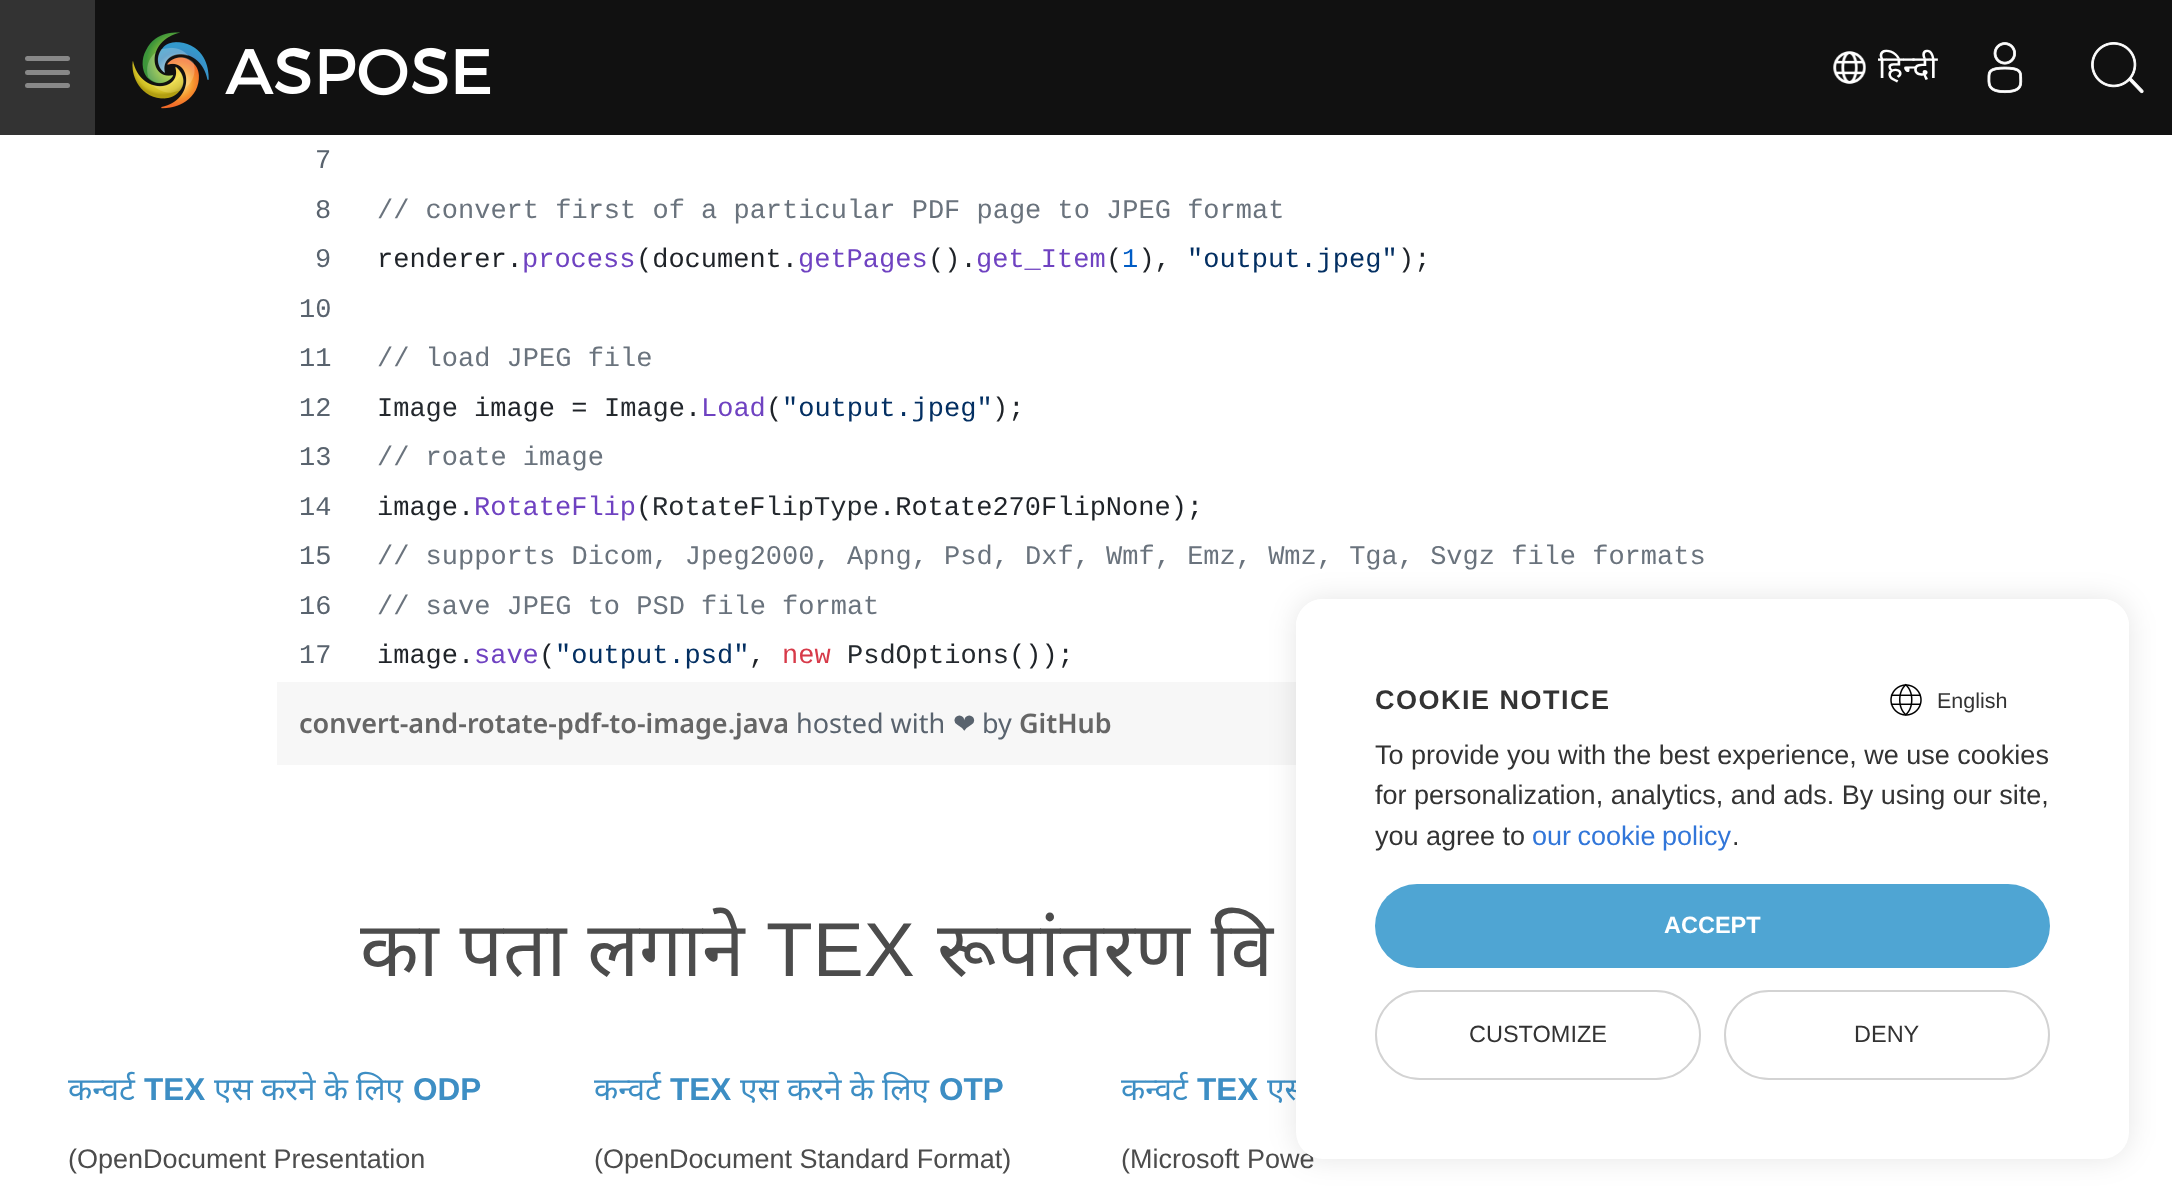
<svg xmlns="http://www.w3.org/2000/svg" width="2172" height="1203" viewBox="0 0 2172 1203">
  <defs>
    <filter id="blur1" x="-50%" y="-200%" width="200%" height="500%"><feGaussianBlur stdDeviation="14.5"/></filter>
  </defs>
  <rect width="100%" height="100%" fill="#ffffff"/>
  <rect x="95" y="0" width="2077" height="135" fill="#111111"/>
  <rect x="0" y="0" width="95" height="135" fill="#333333"/>
  <rect x="25" y="56" width="45" height="5" rx="2.5" fill="#888888"/>
  <rect x="25" y="70" width="45" height="5" rx="2.5" fill="#888888"/>
  <rect x="25" y="83" width="45" height="5" rx="2.5" fill="#888888"/>
  <image x="132" y="32" width="359" height="77" href="img1.png"/>
  <image x="1833" y="51" width="33" height="33" href="img2.png"/>
  <text x="1878" y="78" font-family="Noto Sans" font-size="31.5" fill="#ffffff">हिन्दी</text>
  <image x="1987" y="42" width="36" height="52" href="img3.png"/>
  <image x="2091" y="42" width="53" height="52" href="img4.png"/>
  <text x="315" y="168" font-family="Liberation Mono" font-size="27" fill="#59636e">7</text>
  <text x="315" y="218" font-family="Liberation Mono" font-size="27" fill="#59636e">8</text>
  <text x="377" y="218" font-family="Liberation Mono" font-size="27" fill="#6a737d">// convert first of a particular PDF page to JPEG format</text>
  <text x="315" y="267" font-family="Liberation Mono" font-size="27" fill="#59636e">9</text>
  <text x="377" y="267" font-family="Liberation Mono" font-size="27" fill="#1f2328">renderer.</text>
  <text x="636" y="267" font-family="Liberation Mono" font-size="27" fill="#1f2328">(document.</text>
  <text x="798" y="267" font-family="Liberation Mono" font-size="27" fill="#6f42c1">getPages</text>
  <text x="928" y="267" font-family="Liberation Mono" font-size="27" fill="#1f2328">().</text>
  <text x="976" y="267" font-family="Liberation Mono" font-size="27" fill="#6f42c1">get_Item</text>
  <text x="1106" y="267" font-family="Liberation Mono" font-size="27" fill="#1f2328">( ),</text>
  <text x="1187" y="267" font-family="Liberation Mono" font-size="27" fill="#032f62">"output.jpeg"</text>
  <text x="1398" y="267" font-family="Liberation Mono" font-size="27" fill="#1f2328">);</text>
  <text x="522" y="267" font-family="Liberation Mono" font-size="27" fill="#6f42c1">process</text>
  <text x="1122" y="267" font-family="Liberation Mono" font-size="27" fill="#005cc5">1</text>
  <text x="299" y="317" font-family="Liberation Mono" font-size="27" fill="#59636e">10</text>
  <text x="299" y="366" font-family="Liberation Mono" font-size="27" fill="#59636e">11</text>
  <text x="377" y="366" font-family="Liberation Mono" font-size="27" fill="#6a737d">// load JPEG file</text>
  <text x="299" y="416" font-family="Liberation Mono" font-size="27" fill="#59636e">12</text>
  <text x="377" y="416" font-family="Liberation Mono" font-size="27" fill="#24292e">Image</text>
  <text x="474" y="416" font-family="Liberation Mono" font-size="27" fill="#1f2328">image =</text>
  <text x="604" y="416" font-family="Liberation Mono" font-size="27" fill="#24292e">Image</text>
  <text x="685" y="416" font-family="Liberation Mono" font-size="27" fill="#1f2328">.</text>
  <text x="701" y="416" font-family="Liberation Mono" font-size="27" fill="#6f42c1">Load</text>
  <text x="766" y="416" font-family="Liberation Mono" font-size="27" fill="#1f2328">(</text>
  <text x="782" y="416" font-family="Liberation Mono" font-size="27" fill="#032f62">"output.jpeg"</text>
  <text x="992" y="416" font-family="Liberation Mono" font-size="27" fill="#1f2328">);</text>
  <text x="299" y="465" font-family="Liberation Mono" font-size="27" fill="#59636e">13</text>
  <text x="377" y="465" font-family="Liberation Mono" font-size="27" fill="#6a737d">// roate image</text>
  <text x="299" y="515" font-family="Liberation Mono" font-size="27" fill="#59636e">14</text>
  <text x="377" y="515" font-family="Liberation Mono" font-size="27" fill="#1f2328">image.</text>
  <text x="474" y="515" font-family="Liberation Mono" font-size="27" fill="#6f42c1">RotateFlip</text>
  <text x="636" y="515" font-family="Liberation Mono" font-size="27" fill="#1f2328">(</text>
  <text x="652" y="515" font-family="Liberation Mono" font-size="27" fill="#24292e">RotateFlipType</text>
  <text x="879" y="515" font-family="Liberation Mono" font-size="27" fill="#1f2328">.Rotate270FlipNone);</text>
  <text x="299" y="564" font-family="Liberation Mono" font-size="27" fill="#59636e">15</text>
  <text x="377" y="564" font-family="Liberation Mono" font-size="27" fill="#6a737d">// supports Dicom, Jpeg2000, Apng, Psd, Dxf, Wmf, Emz, Wmz, Tga, Svgz file formats</text>
  <text x="299" y="614" font-family="Liberation Mono" font-size="27" fill="#59636e">16</text>
  <text x="377" y="614" font-family="Liberation Mono" font-size="27" fill="#6a737d">// save JPEG to PSD file format</text>
  <text x="299" y="663" font-family="Liberation Mono" font-size="27" fill="#59636e">17</text>
  <text x="377" y="663" font-family="Liberation Mono" font-size="27" fill="#1f2328">image.</text>
  <text x="474" y="663" font-family="Liberation Mono" font-size="27" fill="#6f42c1">save</text>
  <text x="539" y="663" font-family="Liberation Mono" font-size="27" fill="#1f2328">(</text>
  <text x="555" y="663" font-family="Liberation Mono" font-size="27" fill="#032f62">"output.psd"</text>
  <text x="749" y="663" font-family="Liberation Mono" font-size="27" fill="#1f2328">,</text>
  <text x="782" y="663" font-family="Liberation Mono" font-size="27" fill="#d73a49">new</text>
  <text x="847" y="663" font-family="Liberation Mono" font-size="27" fill="#24292e">PsdOptions</text>
  <text x="1009" y="663" font-family="Liberation Mono" font-size="27" fill="#1f2328">());</text>
  <rect x="277" y="682" width="1019" height="83" fill="#f7f7f7"/>
  <text x="299" y="733" font-family="Noto Sans" font-size="27" font-weight="600" fill="#666666">convert-and-rotate-pdf-to-image.java</text>
  <text x="796" y="733" font-family="Noto Sans" font-size="27" fill="#59636e">hosted with</text>
  <text x="953" y="733" font-family="DejaVu Sans" font-size="27" fill="#59636e">❤</text>
  <text x="982" y="733" font-family="Noto Sans" font-size="27" fill="#59636e">by</text>
  <text x="1019" y="733" font-family="Noto Sans" font-size="27" font-weight="600" fill="#666666">GitHub</text>
  <text x="360" y="976" word-spacing="1" font-family="Noto Sans" font-size="76.5" fill="#4c4c4c">का पता लगाने</text>
  <text x="766" y="976" font-family="Liberation Sans" font-size="76.5" fill="#4c4c4c">TEX</text>
  <text x="937" y="976" word-spacing="1" font-family="Noto Sans" font-size="76.5" fill="#4c4c4c">रूपांतरण वि</text>
  <text x="68" y="1100" font-family="Noto Sans" font-size="31.5" fill="#3d8ec4">कन्वर्ट</text>
  <text x="144" y="1100" font-family="Liberation Sans" font-size="31.5" font-weight="bold" fill="#3d8ec4">TEX</text>
  <text x="214" y="1100" font-family="Noto Sans" font-size="31.5" fill="#3d8ec4">एस करने के लिए</text>
  <text x="413" y="1100" font-family="Liberation Sans" font-size="31.5" font-weight="bold" fill="#3d8ec4">ODP</text>
  <text x="68" y="1168" font-family="Liberation Sans" font-size="27" fill="#4c4c4c">(OpenDocument Presentation</text>
  <text x="594" y="1100" font-family="Noto Sans" font-size="31.5" fill="#3d8ec4">कन्वर्ट</text>
  <text x="670" y="1100" font-family="Liberation Sans" font-size="31.5" font-weight="bold" fill="#3d8ec4">TEX</text>
  <text x="740" y="1100" font-family="Noto Sans" font-size="31.5" fill="#3d8ec4">एस करने के लिए</text>
  <text x="939" y="1100" font-family="Liberation Sans" font-size="31.5" font-weight="bold" fill="#3d8ec4">OTP</text>
  <text x="594" y="1168" font-family="Liberation Sans" font-size="27" fill="#4c4c4c">(OpenDocument Standard Format)</text>
  <text x="1121" y="1100" font-family="Noto Sans" font-size="31.5" fill="#3d8ec4">कन्वर्ट</text>
  <text x="1197" y="1100" font-family="Liberation Sans" font-size="31.5" font-weight="bold" fill="#3d8ec4">TEX</text>
  <text x="1267" y="1100" font-family="Noto Sans" font-size="31.5" fill="#3d8ec4">एस</text>
  <text x="1121" y="1168" font-family="Liberation Sans" font-size="27" fill="#4c4c4c">(Microsoft Powe</text>
  <rect x="1296" y="599" width="833" height="560" rx="27" fill="#000000" fill-opacity="0.1" filter="url(#blur1)"/>
  <rect x="1296" y="599" width="833" height="560" rx="27" fill="#ffffff"/>
  <path d="M1323 599H2102C2117 599 2129 611 2129 626V725H1296V626C1296 611 1308 599 1323 599Z" fill="#ffffff"/>
  <text x="1375" y="709" font-family="Liberation Sans" font-size="27" font-weight="bold" letter-spacing="1.5" fill="#333333">COOKIE NOTICE</text>
  <image x="1890" y="683" width="32" height="33" href="img5.png"/>
  <text x="1937" y="708" font-family="Liberation Sans" font-size="21.5" fill="#333333">English</text>
  <text x="1375" y="764" font-family="Liberation Sans" font-size="27" fill="#333333">To provide you with the best experience, we use cookies</text>
  <text x="1375" y="804" font-family="Liberation Sans" font-size="27" fill="#333333">for personalization, analytics, and ads. By using our site,</text>
  <text x="1375" y="845" font-family="Liberation Sans" font-size="27" fill="#333333">you agree to</text>
  <text x="1532" y="845" word-spacing="-1" font-family="Liberation Sans" font-size="27" fill="#3176d9">our cookie policy</text>
  <text x="1732" y="845" font-family="Liberation Sans" font-size="27" fill="#333333">.</text>
  <rect x="1375" y="884" width="675" height="84" rx="42" fill="#4fa5d3"/>
  <text x="1664" y="933" font-family="Liberation Sans" font-size="23.5" font-weight="bold" fill="#ffffff">ACCEPT</text>
  <rect x="1376" y="991" width="324" height="88" rx="44" fill="none" stroke="#d3d3d3" stroke-width="2"/>
  <text x="1469" y="1042" font-family="Liberation Sans" font-size="23.5" fill="#333333">CUSTOMIZE</text>
  <rect x="1725" y="991" width="324" height="88" rx="44" fill="none" stroke="#d3d3d3" stroke-width="2"/>
  <text x="1854" y="1042" font-family="Liberation Sans" font-size="23.5" fill="#333333">DENY</text>
</svg>
